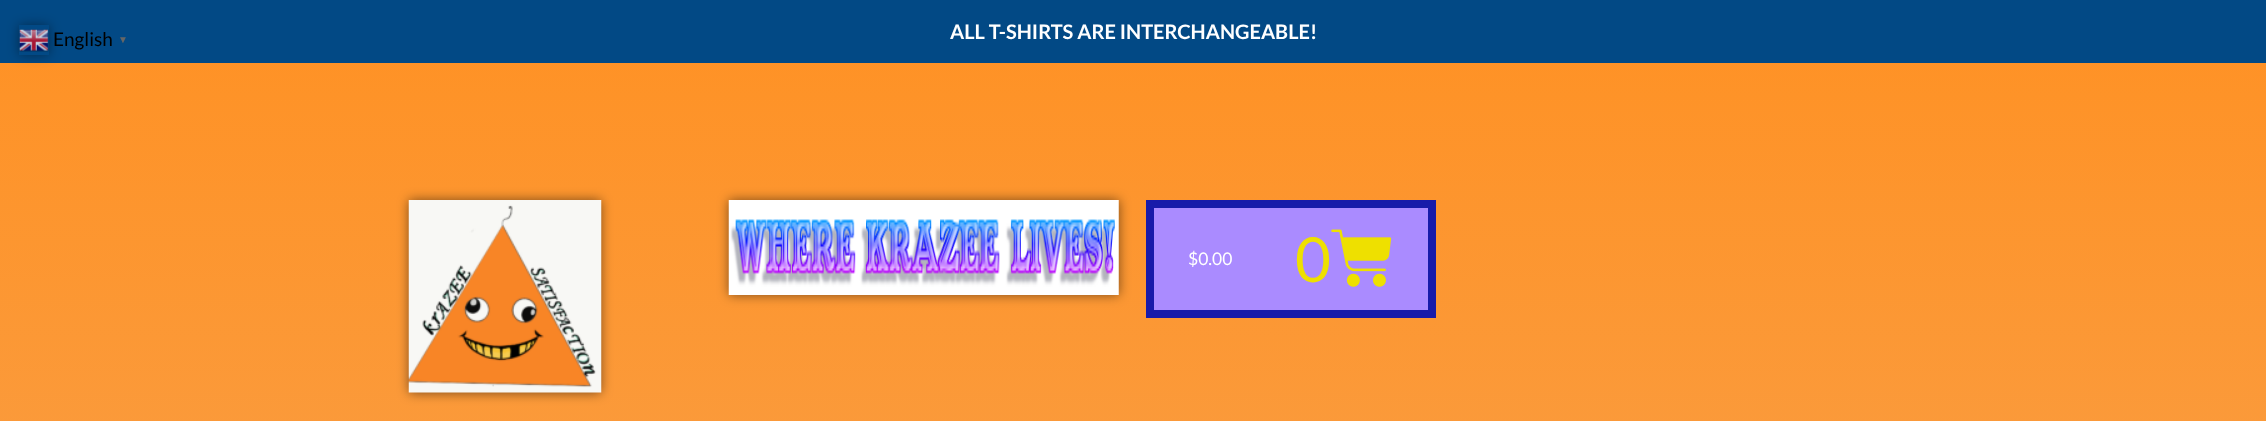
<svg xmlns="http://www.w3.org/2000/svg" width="2266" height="421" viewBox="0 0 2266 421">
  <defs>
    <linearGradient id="g1" gradientUnits="userSpaceOnUse" x1="1133" y1="0" x2="1133" y2="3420"><stop offset="0" stop-color="#ff9123"/><stop offset="1" stop-color="#dfd8da"/></linearGradient>
    <clipPath id="clip1"><path d="M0 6H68V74H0ZM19 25H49V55H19Z" clip-rule="evenodd"/></clipPath>
    <filter id="blur1" x="-50%" y="-200%" width="200%" height="500%"><feGaussianBlur stdDeviation="6"/></filter>
  </defs>
  <rect width="100%" height="100%" fill="#ffffff"/>
  <rect x="0" y="63" width="2266" height="358" fill="url(#g1)"/>
  <rect x="0" y="0" width="2266" height="63" fill="#024985"/>
  <g clip-path="url(#clip1)">
    <rect x="19" y="25" width="30" height="30" fill="#000000" fill-opacity="0.4" filter="url(#blur1)"/>
  </g>
  <image x="19" y="29" width="30" height="23" href="img1.png"/>
  <text x="53" y="46" font-family="Lato" font-size="19" fill="#000000">English</text>
  <text x="118" y="43" font-family="Liberation Sans" font-size="10" font-weight="bold" fill="#666666">▼</text>
  <text x="950" y="39" font-family="Lato" font-size="20" font-weight="bold" fill="#ffffff">ALL T-SHIRTS ARE INTERCHANGEABLE!</text>
  <rect x="409" y="200" width="192" height="193" fill="#000000" fill-opacity="0.5" filter="url(#blur1)"/>
  <image x="408" y="200" width="194" height="193" href="img2.png"/>
  <rect x="729" y="200" width="390" height="95" fill="#000000" fill-opacity="0.5" filter="url(#blur1)"/>
  <image x="728" y="200" width="391" height="95" href="img3.png"/>
  <rect x="1150" y="204" width="282" height="110" fill="#aa8bff" stroke="#181baa" stroke-width="8"/>
  <text x="1188" y="265" font-family="Lato" font-size="17.5" fill="#ffffff">$0.00</text>
  <text x="1295" y="282" font-family="Lato" font-size="62" fill="#eee000">0</text>
  <image x="1331" y="229" width="61" height="58" href="img4.png"/>
</svg>
